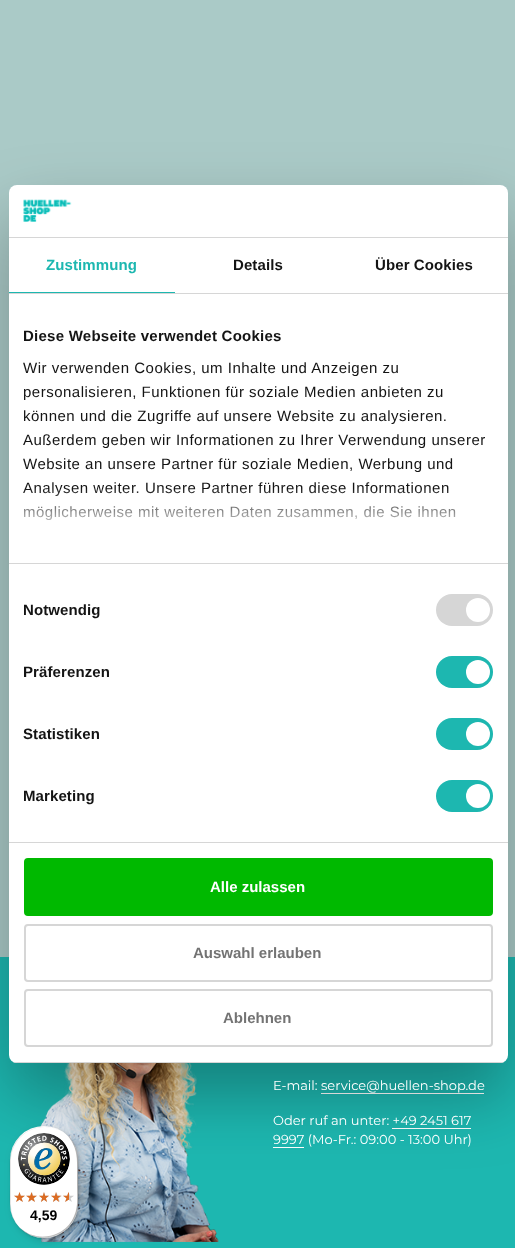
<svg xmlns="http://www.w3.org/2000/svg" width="515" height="1248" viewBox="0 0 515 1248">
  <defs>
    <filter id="blur1" x="-50%" y="-200%" width="200%" height="500%"><feGaussianBlur stdDeviation="34"/></filter>
    <linearGradient id="g1" gradientUnits="userSpaceOnUse" x1="252" y1="563" x2="252" y2="488"><stop offset="0" stop-color="#ffffff"/><stop offset="0.5" stop-color="#ffffff" stop-opacity="0.8"/><stop offset="1" stop-color="#ffffff" stop-opacity="0"/></linearGradient>
    <clipPath id="clip1"><rect x="9" y="185" width="499" height="878" rx="8"/></clipPath>
    <filter id="blur2" x="-50%" y="-200%" width="200%" height="500%"><feGaussianBlur stdDeviation="4"/></filter>
    <filter id="blur3" x="-50%" y="-200%" width="200%" height="500%"><feGaussianBlur stdDeviation="1"/></filter>
  </defs>
  <rect width="100%" height="100%" fill="#1db7b0"/>
  <rect x="0" y="0" width="515" height="957" fill="#aacac7"/>
  <image x="40" y="1063" width="179" height="179" href="img2.png"/>
  <rect x="321" y="1093" width="163" height="1" fill="#ffffff"/>
  <rect x="392" y="1128" width="79" height="1" fill="#ffffff"/>
  <rect x="273" y="1147" width="31" height="1" fill="#ffffff"/>
  <rect x="9" y="217" width="499" height="878" rx="8" fill="#000000" fill-opacity="0.3" filter="url(#blur1)"/>
  <rect x="9" y="185" width="499" height="878" rx="8" fill="#ffffff"/>
  <rect x="9" y="237" width="499" height="1" fill="#d6d6d6"/>
  <image x="23" y="199" width="49" height="23" href="img1.png"/>
  <rect x="9" y="293" width="499" height="1" fill="#d6d6d6"/>
  <rect x="9" y="292" width="166" height="1" fill="#1db7b0"/>
  <text x="46" y="270" font-family="Liberation Sans" font-size="15" font-weight="bold" letter-spacing="0.1" fill="#1db7b0">Zustimmung</text>
  <text x="233" y="270" font-family="Liberation Sans" font-size="15" font-weight="bold" letter-spacing="0.1" fill="#141414">Details</text>
  <text x="375" y="270" font-family="Liberation Sans" font-size="15" font-weight="bold" letter-spacing="0.1" fill="#141414">Über Cookies</text>
  <rect x="9" y="563" width="499" height="1" fill="#d6d6d6"/>
  <text x="23" y="341" font-family="Liberation Sans" font-size="15" font-weight="bold" letter-spacing="0.25" fill="#141414">Diese Webseite verwendet Cookies</text>
  <text x="23" y="373" font-family="Liberation Sans" font-size="15" letter-spacing="0.5" fill="#141414">Wir verwenden Cookies, um Inhalte und Anzeigen zu</text>
  <text x="23" y="397" font-family="Liberation Sans" font-size="15" letter-spacing="0.5" fill="#141414">personalisieren, Funktionen für soziale Medien anbieten zu</text>
  <text x="23" y="421" font-family="Liberation Sans" font-size="15" letter-spacing="0.5" fill="#141414">können und die Zugriffe auf unsere Website zu analysieren.</text>
  <text x="23" y="445" font-family="Liberation Sans" font-size="15" letter-spacing="0.5" fill="#141414">Außerdem geben wir Informationen zu Ihrer Verwendung unserer</text>
  <text x="23" y="469" font-family="Liberation Sans" font-size="15" letter-spacing="0.5" fill="#141414">Website an unsere Partner für soziale Medien, Werbung und</text>
  <text x="23" y="493" font-family="Liberation Sans" font-size="15" letter-spacing="0.5" fill="#141414">Analysen weiter. Unsere Partner führen diese Informationen</text>
  <text x="23" y="517" font-family="Liberation Sans" font-size="15" letter-spacing="0.5" fill="#141414">möglicherweise mit weiteren Daten zusammen, die Sie ihnen</text>
  <rect x="23" y="489" width="433" height="32" fill="url(#g1)"/>
  <rect x="9" y="842" width="499" height="1" fill="#d6d6d6"/>
  <text x="23" y="615" font-family="Liberation Sans" font-size="15" font-weight="bold" letter-spacing="0.1" fill="#141414">Notwendig</text>
  <rect x="436" y="594" width="57" height="32" rx="16" fill="#d6d6d6"/>
  <circle cx="478" cy="610" r="12" fill="#ffffff"/>
  <text x="23" y="677" font-family="Liberation Sans" font-size="15" font-weight="bold" letter-spacing="0.1" fill="#141414">Präferenzen</text>
  <rect x="436" y="656" width="57" height="32" rx="16" fill="#1db7b0"/>
  <circle cx="478" cy="672" r="12" fill="#ffffff"/>
  <text x="23" y="739" font-family="Liberation Sans" font-size="15" font-weight="bold" letter-spacing="0.1" fill="#141414">Statistiken</text>
  <rect x="436" y="718" width="57" height="32" rx="16" fill="#1db7b0"/>
  <circle cx="478" cy="734" r="12" fill="#ffffff"/>
  <text x="23" y="801" font-family="Liberation Sans" font-size="15" font-weight="bold" letter-spacing="0.1" fill="#141414">Marketing</text>
  <rect x="436" y="780" width="57" height="32" rx="16" fill="#1db7b0"/>
  <circle cx="478" cy="796" r="12" fill="#ffffff"/>
  <g clip-path="url(#clip1)">
    <rect x="9" y="1062" width="499" height="1" fill="#d6d6d6"/>
  </g>
  <rect x="25" y="859" width="467" height="56" rx="3" fill="#00b900" stroke="#00b900" stroke-width="2"/>
  <text x="210" y="892" font-family="Liberation Sans" font-size="15" font-weight="bold" fill="#ffffff">Alle zulassen</text>
  <rect x="25" y="925" width="467" height="56" rx="3" fill="none" stroke="#d6d6d6" stroke-width="2"/>
  <text x="193" y="958" font-family="Liberation Sans" font-size="15" font-weight="bold" fill="#737373">Auswahl erlauben</text>
  <rect x="25" y="990" width="467" height="56" rx="3" fill="none" stroke="#d6d6d6" stroke-width="2"/>
  <text x="223" y="1023" font-family="Liberation Sans" font-size="15" font-weight="bold" fill="#737373">Ablehnen</text>
  <text x="273" y="1090" font-family="Montserrat" font-size="13" fill="#ffffff">E-mail: service@huellen-shop.de</text>
  <text x="273" y="1125" font-family="Montserrat" font-size="13" fill="#ffffff">Oder ruf an unter: +49 2451 617</text>
  <text x="273" y="1144" font-family="Montserrat" font-size="13" fill="#ffffff">9997 (Mo-Fr.: 09:00 - 13:00 Uhr)</text>
  <rect x="13" y="1129" width="68" height="112" rx="34" fill="#000000" fill-opacity="0.15" filter="url(#blur2)"/>
  <rect x="11" y="1127" width="68" height="112" rx="34" fill="#000000" fill-opacity="0.15" filter="url(#blur3)"/>
  <rect x="10" y="1126" width="68" height="112" rx="34" fill="#ffffff"/>
  <path d="M45 1127C53 1127 61 1130 67 1135C50 1120 22 1126 13 1147C8 1157 10 1171 10 1182C10 1197 7 1214 19 1227C14 1221 11 1213 11 1205V1161C11 1142 26 1127 45 1127Z" fill="#000000" fill-opacity="0.1"/>
  <path d="M21 1229C38 1244 66 1238 75 1217C80 1207 78 1193 78 1182C78 1167 81 1150 69 1137C79 1150 77 1166 77 1181C77 1192 79 1206 74 1216C66 1237 38 1243 21 1229Z" fill="#000000" fill-opacity="0.2"/>
  <path d="M17 1225C24 1233 33 1238 44 1238C63 1238 78 1223 78 1204V1160C78 1149 73 1140 65 1133C72 1140 77 1149 77 1159V1203C77 1222 62 1237 43 1237C33 1237 24 1232 17 1225Z" fill="#323232" fill-opacity="0.2"/>
  <path d="M44 1126C63 1126 78 1141 78 1160C78 1141 62 1126 44 1126ZM78 1204C78 1222 62 1238 44 1238C63 1238 78 1223 78 1204Z" fill="#ffffff" fill-opacity="0.3" fill-rule="evenodd"/>
  <image x="18" y="1133" width="52" height="52" href="img3.png"/>
  <image x="14" y="1192" width="11" height="10" href="img4.png"/>
  <image x="27" y="1192" width="10" height="10" href="img5.png"/>
  <image x="39" y="1192" width="10" height="10" href="img6.png"/>
  <image x="51" y="1192" width="11" height="10" href="img7.png"/>
  <image x="63" y="1192" width="11" height="10" href="img7.png"/>
  <image x="14" y="1192" width="11" height="10" href="img8.png"/>
  <image x="26" y="1192" width="11" height="10" href="img9.png"/>
  <image x="39" y="1192" width="10" height="10" href="img10.png"/>
  <image x="51" y="1192" width="10" height="10" href="img11.png"/>
  <image x="63" y="1192" width="6" height="10" href="img12.png"/>
  <text x="30" y="1220" font-family="Liberation Sans" font-size="14" font-weight="bold" fill="#000000">4,59</text>
</svg>
